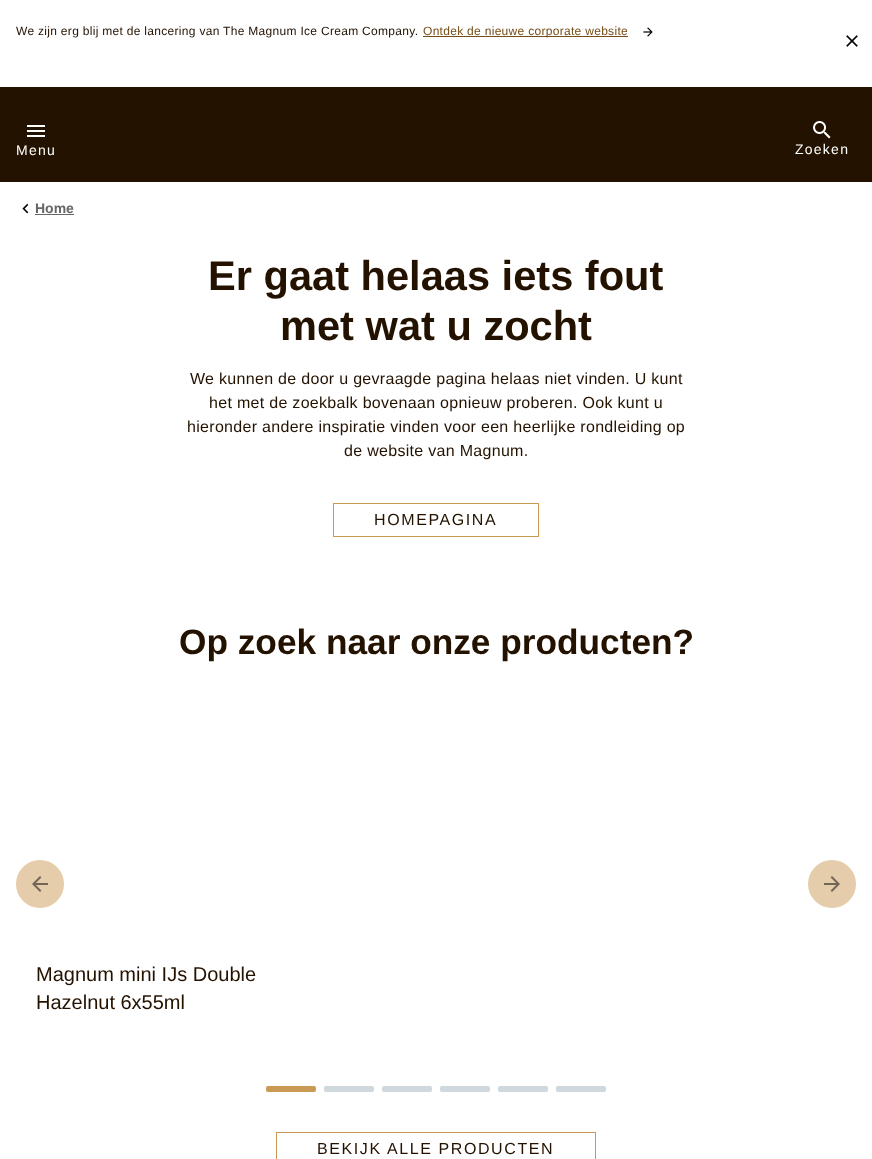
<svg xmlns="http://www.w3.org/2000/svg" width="872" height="1159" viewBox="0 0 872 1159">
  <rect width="100%" height="100%" fill="#ffffff"/>
  <rect x="0" y="87" width="872" height="95" fill="#241201"/>
  <text x="16" y="35" font-family="Liberation Sans" font-size="12" letter-spacing="0.3" fill="#241201">We zijn erg blij met de lancering van The Magnum Ice Cream Company.</text>
  <rect x="423" y="36" width="205" height="1" fill="#754d16"/>
  <text x="423" y="35" font-family="Liberation Sans" font-size="12" letter-spacing="0.3" fill="#754d16">Ontdek de nieuwe corporate website</text>
  <image x="643" y="27" width="10" height="10" href="img1.png"/>
  <image x="846" y="35" width="12" height="12" href="img2.png"/>
  <image x="27" y="125" width="18" height="12" href="img3.png"/>
  <text x="16" y="155" font-family="Liberation Sans" font-size="14" letter-spacing="1.25" fill="#ffffff">Menu</text>
  <image x="813" y="121" width="18" height="18" href="img4.png"/>
  <text x="795" y="154" font-family="Liberation Sans" font-size="14" letter-spacing="1.25" fill="#ffffff">Zoeken</text>
  <image x="22" y="203" width="7" height="11" href="img5.png"/>
  <text x="35" y="213" font-family="Liberation Sans" font-size="14" font-weight="bold" fill="#666666">Home</text>
  <rect x="35" y="214" width="39" height="1" fill="#666666"/>
  <text x="208" y="290" font-family="Liberation Sans" font-size="41.6" font-weight="bold" fill="#241201">Er gaat helaas iets fout</text>
  <text x="280" y="340" font-family="Liberation Sans" font-size="41.6" font-weight="bold" fill="#241201">met wat u zocht</text>
  <text x="190" y="384" font-family="Liberation Sans" font-size="16" letter-spacing="0.3" fill="#241201">We kunnen de door u gevraagde pagina helaas niet vinden. U kunt</text>
  <text x="209" y="408" font-family="Liberation Sans" font-size="16" letter-spacing="0.3" fill="#241201">het met de zoekbalk bovenaan opnieuw proberen. Ook kunt u</text>
  <text x="187" y="432" font-family="Liberation Sans" font-size="16" letter-spacing="0.3" fill="#241201">hieronder andere inspiratie vinden voor een heerlijke rondleiding op</text>
  <text x="344" y="456" font-family="Liberation Sans" font-size="16" letter-spacing="0.3" fill="#241201">de website van Magnum.</text>
  <rect x="333.5" y="503.5" width="205" height="33" fill="none" stroke="#ca9954"/>
  <text x="374" y="525" font-family="Liberation Sans" font-size="16" letter-spacing="1.6" fill="#241201">HOMEPAGINA</text>
  <text x="179" y="654" font-family="Liberation Sans" font-size="35.25" font-weight="bold" fill="#241201">Op zoek naar onze producten?</text>
  <circle cx="40" cy="884" r="24" fill="#e5ccaa"/>
  <image x="32" y="876" width="16" height="16" href="img6.png"/>
  <circle cx="832" cy="884" r="24" fill="#e5ccaa"/>
  <image x="824" y="876" width="16" height="16" href="img7.png"/>
  <text x="36" y="981" font-family="Liberation Sans" font-size="20" fill="#241201">Magnum mini IJs Double</text>
  <text x="36" y="1009" font-family="Liberation Sans" font-size="20" fill="#241201">Hazelnut 6x55ml</text>
  <rect x="266" y="1086" width="50" height="6" rx="2" fill="#ca9954"/>
  <rect x="324" y="1086" width="50" height="6" rx="2" fill="#cfd8dc"/>
  <rect x="382" y="1086" width="50" height="6" rx="2" fill="#cfd8dc"/>
  <rect x="440" y="1086" width="50" height="6" rx="2" fill="#cfd8dc"/>
  <rect x="498" y="1086" width="50" height="6" rx="2" fill="#cfd8dc"/>
  <rect x="556" y="1086" width="50" height="6" rx="2" fill="#cfd8dc"/>
  <rect x="276.5" y="1132.5" width="319" height="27" fill="none" stroke="#ca9954"/>
  <text x="317" y="1154" font-family="Liberation Sans" font-size="16" letter-spacing="1.6" fill="#241201">BEKIJK ALLE PRODUCTEN</text>
</svg>
